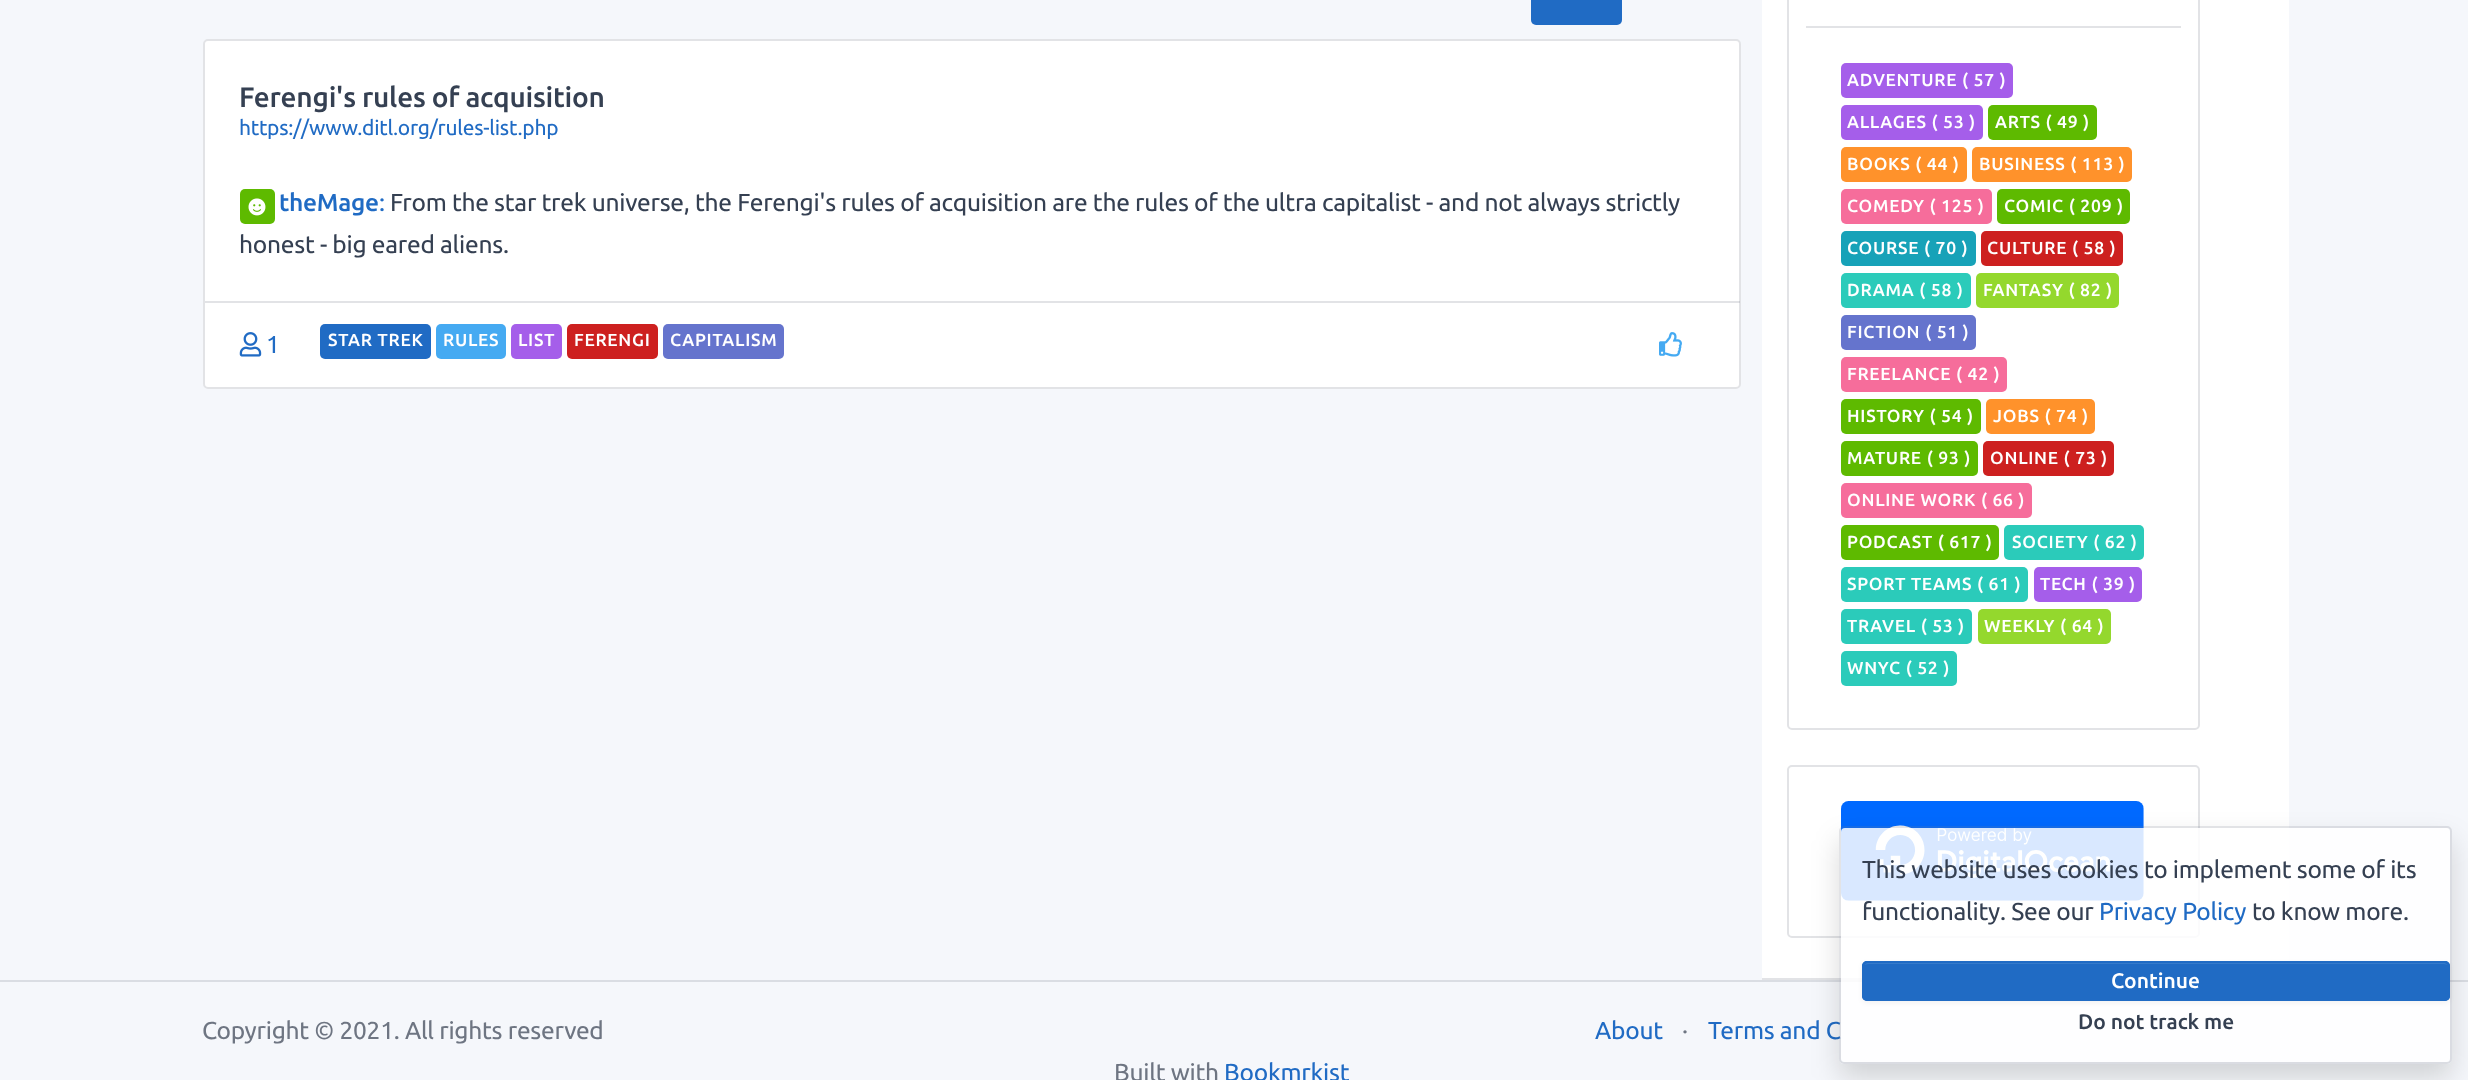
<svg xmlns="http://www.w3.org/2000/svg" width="2468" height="1080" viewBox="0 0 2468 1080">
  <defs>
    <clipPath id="clip1"><path d="M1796 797H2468V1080H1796ZM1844 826H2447C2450 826 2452 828 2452 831V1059C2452 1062 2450 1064 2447 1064H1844C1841 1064 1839 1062 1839 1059V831C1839 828 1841 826 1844 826Z" clip-rule="evenodd"/></clipPath>
    <filter id="blur1" x="-50%" y="-200%" width="200%" height="500%"><feGaussianBlur stdDeviation="14"/></filter>
    <filter id="blur2" x="-50%" y="-200%" width="200%" height="500%"><feGaussianBlur stdDeviation="2.5"/></filter>
  </defs>
  <rect width="100%" height="100%" fill="#f5f7fb"/>
  <rect x="1531" y="-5" width="91" height="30" rx="5" fill="#206bc4"/>
  <rect x="203" y="39" width="1538" height="350" rx="5" fill="#ffffff"/>
  <rect x="204" y="40" width="1536" height="348" rx="4" fill="none" stroke="#6e7582" stroke-opacity="0.2" stroke-width="2"/>
  <text x="239" y="107" font-family="Ubuntu" font-size="28" font-weight="500" letter-spacing="-0.25" fill="#354052">Ferengi's rules of acquisition</text>
  <text x="239" y="135" font-family="Ubuntu" font-size="21" letter-spacing="-0.25" fill="#206bc4">https://www.ditl.org/rules-list.php</text>
  <rect x="240" y="189" width="35" height="35" rx="5" fill="#5eba00"/>
  <image x="248" y="198" width="18" height="18" href="img1.png"/>
  <text x="279" y="211" font-family="Ubuntu" font-size="24.5" font-weight="500" letter-spacing="-0.25" fill="#206bc4">theMage</text>
  <text x="379" y="211" font-family="Ubuntu" font-size="24.5" letter-spacing="-0.25" fill="#206bc4">:</text>
  <text x="390" y="211" font-family="Ubuntu" font-size="24.5" letter-spacing="-0.25" fill="#354052">From the star trek universe, the Ferengi's rules of acquisition are the rules of the ultra capitalist - and not always strictly</text>
  <text x="239" y="253" font-family="Ubuntu" font-size="24.5" letter-spacing="-0.25" fill="#354052">honest - big eared aliens.</text>
  <rect x="205" y="301" width="1535" height="2" fill="#6e7582" fill-opacity="0.2"/>
  <image x="239" y="332" width="23" height="25" href="img2.png"/>
  <text x="266" y="353" font-family="Ubuntu" font-size="24.5" letter-spacing="-0.25" fill="#206bc4">1</text>
  <rect x="320" y="324" width="111" height="35" rx="5" fill="#206bc4"/>
  <text x="328" y="346" font-family="Ubuntu" font-size="17.5" font-weight="500" letter-spacing="0.75" fill="#ffffff">STAR TREK</text>
  <rect x="436" y="324" width="70" height="35" rx="5" fill="#45aaf2"/>
  <text x="443" y="346" font-family="Ubuntu" font-size="17.5" font-weight="500" letter-spacing="0.75" fill="#ffffff">RULES</text>
  <rect x="511" y="324" width="51" height="35" rx="5" fill="#a55eea"/>
  <text x="518" y="346" font-family="Ubuntu" font-size="17.5" font-weight="500" letter-spacing="0.75" fill="#ffffff">LIST</text>
  <rect x="567" y="324" width="91" height="35" rx="5" fill="#cd201f"/>
  <text x="574" y="346" font-family="Ubuntu" font-size="17.5" font-weight="500" letter-spacing="0.75" fill="#ffffff">FERENGI</text>
  <rect x="663" y="324" width="121" height="35" rx="5" fill="#6574cd"/>
  <text x="670" y="346" font-family="Ubuntu" font-size="17.5" font-weight="500" letter-spacing="0.75" fill="#ffffff">CAPITALISM</text>
  <image x="1659" y="332" width="23" height="25" href="img3.png"/>
  <rect x="1762" y="0" width="527" height="978" fill="#ffffff"/>
  <rect x="1762" y="978" width="100" height="2" fill="#e2e3e6"/>
  <rect x="1788" y="-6" width="411" height="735" rx="4" fill="none" stroke="#e2e3e6" stroke-width="2"/>
  <rect x="1806" y="26" width="375" height="2" fill="#e2e3e6"/>
  <rect x="1841" y="63" width="172" height="35" rx="5" fill="#a55eea"/>
  <text x="1847" y="86" font-family="Ubuntu" font-size="17.5" font-weight="500" letter-spacing="0.75" fill="#ffffff">ADVENTURE ( 57 )</text>
  <rect x="1841" y="105" width="142" height="35" rx="5" fill="#a55eea"/>
  <text x="1847" y="128" font-family="Ubuntu" font-size="17.5" font-weight="500" letter-spacing="0.75" fill="#ffffff">ALLAGES ( 53 )</text>
  <rect x="1988" y="105" width="109" height="35" rx="5" fill="#5eba00"/>
  <text x="1995" y="128" font-family="Ubuntu" font-size="17.5" font-weight="500" letter-spacing="0.75" fill="#ffffff">ARTS ( 49 )</text>
  <rect x="1841" y="147" width="126" height="35" rx="5" fill="#ff922b"/>
  <text x="1847" y="170" font-family="Ubuntu" font-size="17.5" font-weight="500" letter-spacing="0.75" fill="#ffffff">BOOKS ( 44 )</text>
  <rect x="1972" y="147" width="160" height="35" rx="5" fill="#ff922b"/>
  <text x="1979" y="170" font-family="Ubuntu" font-size="17.5" font-weight="500" letter-spacing="0.75" fill="#ffffff">BUSINESS ( 113 )</text>
  <rect x="1841" y="189" width="151" height="35" rx="5" fill="#f66d9b"/>
  <text x="1847" y="212" font-family="Ubuntu" font-size="17.5" font-weight="500" letter-spacing="0.75" fill="#ffffff">COMEDY ( 125 )</text>
  <rect x="1997" y="189" width="133" height="35" rx="5" fill="#5eba00"/>
  <text x="2004" y="212" font-family="Ubuntu" font-size="17.5" font-weight="500" letter-spacing="0.75" fill="#ffffff">COMIC ( 209 )</text>
  <rect x="1841" y="231" width="135" height="35" rx="5" fill="#17a2b8"/>
  <text x="1847" y="254" font-family="Ubuntu" font-size="17.5" font-weight="500" letter-spacing="0.75" fill="#ffffff">COURSE ( 70 )</text>
  <rect x="1981" y="231" width="142" height="35" rx="5" fill="#cd201f"/>
  <text x="1987" y="254" font-family="Ubuntu" font-size="17.5" font-weight="500" letter-spacing="0.75" fill="#ffffff">CULTURE ( 58 )</text>
  <rect x="1841" y="273" width="130" height="35" rx="5" fill="#2bcbba"/>
  <text x="1847" y="296" font-family="Ubuntu" font-size="17.5" font-weight="500" letter-spacing="0.75" fill="#ffffff">DRAMA ( 58 )</text>
  <rect x="1976" y="273" width="143" height="35" rx="5" fill="#94d82d"/>
  <text x="1983" y="296" font-family="Ubuntu" font-size="17.5" font-weight="500" letter-spacing="0.75" fill="#ffffff">FANTASY ( 82 )</text>
  <rect x="1841" y="315" width="135" height="35" rx="5" fill="#6574cd"/>
  <text x="1847" y="338" font-family="Ubuntu" font-size="17.5" font-weight="500" letter-spacing="0.75" fill="#ffffff">FICTION ( 51 )</text>
  <rect x="1841" y="357" width="166" height="35" rx="5" fill="#f66d9b"/>
  <text x="1847" y="380" font-family="Ubuntu" font-size="17.5" font-weight="500" letter-spacing="0.75" fill="#ffffff">FREELANCE ( 42 )</text>
  <rect x="1841" y="399" width="140" height="35" rx="5" fill="#5eba00"/>
  <text x="1847" y="422" font-family="Ubuntu" font-size="17.5" font-weight="500" letter-spacing="0.75" fill="#ffffff">HISTORY ( 54 )</text>
  <rect x="1986" y="399" width="109" height="35" rx="5" fill="#ff922b"/>
  <text x="1993" y="422" font-family="Ubuntu" font-size="17.5" font-weight="500" letter-spacing="0.75" fill="#ffffff">JOBS ( 74 )</text>
  <rect x="1841" y="441" width="137" height="35" rx="5" fill="#5eba00"/>
  <text x="1847" y="464" font-family="Ubuntu" font-size="17.5" font-weight="500" letter-spacing="0.75" fill="#ffffff">MATURE ( 93 )</text>
  <rect x="1983" y="441" width="131" height="35" rx="5" fill="#cd201f"/>
  <text x="1990" y="464" font-family="Ubuntu" font-size="17.5" font-weight="500" letter-spacing="0.75" fill="#ffffff">ONLINE ( 73 )</text>
  <rect x="1841" y="483" width="191" height="35" rx="5" fill="#f66d9b"/>
  <text x="1847" y="506" font-family="Ubuntu" font-size="17.5" font-weight="500" letter-spacing="0.75" fill="#ffffff">ONLINE WORK ( 66 )</text>
  <rect x="1841" y="525" width="158" height="35" rx="5" fill="#5eba00"/>
  <text x="1847" y="548" font-family="Ubuntu" font-size="17.5" font-weight="500" letter-spacing="0.75" fill="#ffffff">PODCAST ( 617 )</text>
  <rect x="2004" y="525" width="140" height="35" rx="5" fill="#2bcbba"/>
  <text x="2012" y="548" font-family="Ubuntu" font-size="17.5" font-weight="500" letter-spacing="0.75" fill="#ffffff">SOCIETY ( 62 )</text>
  <rect x="1841" y="567" width="187" height="35" rx="5" fill="#2bcbba"/>
  <text x="1847" y="590" font-family="Ubuntu" font-size="17.5" font-weight="500" letter-spacing="0.75" fill="#ffffff">SPORT TEAMS ( 61 )</text>
  <rect x="2034" y="567" width="108" height="35" rx="5" fill="#a55eea"/>
  <text x="2040" y="590" font-family="Ubuntu" font-size="17.5" font-weight="500" letter-spacing="0.75" fill="#ffffff">TECH ( 39 )</text>
  <rect x="1841" y="609" width="131" height="35" rx="5" fill="#2bcbba"/>
  <text x="1847" y="632" font-family="Ubuntu" font-size="17.5" font-weight="500" letter-spacing="0.75" fill="#ffffff">TRAVEL ( 53 )</text>
  <rect x="1978" y="609" width="133" height="35" rx="5" fill="#94d82d"/>
  <text x="1984" y="632" font-family="Ubuntu" font-size="17.5" font-weight="500" letter-spacing="0.75" fill="#ffffff">WEEKLY ( 64 )</text>
  <rect x="1841" y="651" width="116" height="35" rx="5" fill="#2bcbba"/>
  <text x="1847" y="674" font-family="Ubuntu" font-size="17.5" font-weight="500" letter-spacing="0.75" fill="#ffffff">WNYC ( 52 )</text>
  <rect x="1788" y="766" width="411" height="171" rx="4" fill="none" stroke="#e2e3e6" stroke-width="2"/>
  <image x="1841" y="801" width="303" height="100" href="img4.png"/>
  <rect x="0" y="980" width="2468" height="2" fill="#dadde3"/>
  <text x="202" y="1039" font-family="Ubuntu" font-size="24.5" letter-spacing="-0.25" fill="#6e7582">Copyright © 2021. All rights reserved</text>
  <text x="1595" y="1039" font-family="Ubuntu" font-size="24.5" letter-spacing="-0.25" fill="#206bc4">About</text>
  <text x="1682" y="1039" font-family="Ubuntu" font-size="24.5" letter-spacing="-0.25" fill="#6e7582">·</text>
  <text x="1708" y="1039" font-family="Ubuntu" font-size="24.5" letter-spacing="-0.25" fill="#206bc4">Terms and C</text>
  <text x="1114" y="1081" font-family="Ubuntu" font-size="24.5" letter-spacing="-0.25" fill="#6e7582">Built with</text>
  <text x="1224" y="1081" font-family="Ubuntu" font-size="24.5" letter-spacing="-0.25" fill="#206bc4">Bookmrkist</text>
  <g clip-path="url(#clip1)">
    <rect x="1839" y="840" width="613" height="238" rx="5" fill="#000000" fill-opacity="0.15" filter="url(#blur1)"/>
  </g>
  <rect x="1841" y="828" width="609" height="234" rx="4" fill="#ffffff" fill-opacity="0.85"/>
  <rect x="1840" y="827" width="611" height="236" rx="4" fill="none" stroke="#6e7582" stroke-opacity="0.2" stroke-width="2"/>
  <text x="1862" y="878" font-family="Ubuntu" font-size="24.5" letter-spacing="-0.25" fill="#354052">This website uses cookies to implement some of its</text>
  <text x="1862" y="920" font-family="Ubuntu" font-size="24.5" letter-spacing="-0.25" fill="#354052">functionality. See our</text>
  <text x="2099" y="920" font-family="Ubuntu" font-size="24.5" letter-spacing="-0.25" fill="#206bc4">Privacy Policy</text>
  <text x="2252" y="920" font-family="Ubuntu" font-size="24.5" letter-spacing="-0.25" fill="#354052">to know more.</text>
  <rect x="1862" y="963" width="588" height="40" rx="5" fill="#000000" fill-opacity="0.05" filter="url(#blur2)"/>
  <rect x="1862" y="961" width="588" height="40" rx="5" fill="#206bc4"/>
  <path d="M1868 964C1867 964 1865 965 1864 965C1865 964 1866 963 1868 963H2444C2446 963 2447 964 2448 965C2447 965 2445 964 2444 964Z" fill="#367aca"/>
  <rect x="1863" y="962" width="586" height="38" rx="4" fill="none" stroke="#206bc4" stroke-width="2"/>
  <text x="2111" y="988" font-family="Ubuntu" font-size="21" font-weight="500" fill="#ffffff">Continue</text>
  <text x="2078" y="1029" font-family="Ubuntu" font-size="21" font-weight="500" fill="#354052">Do not track me</text>
</svg>
